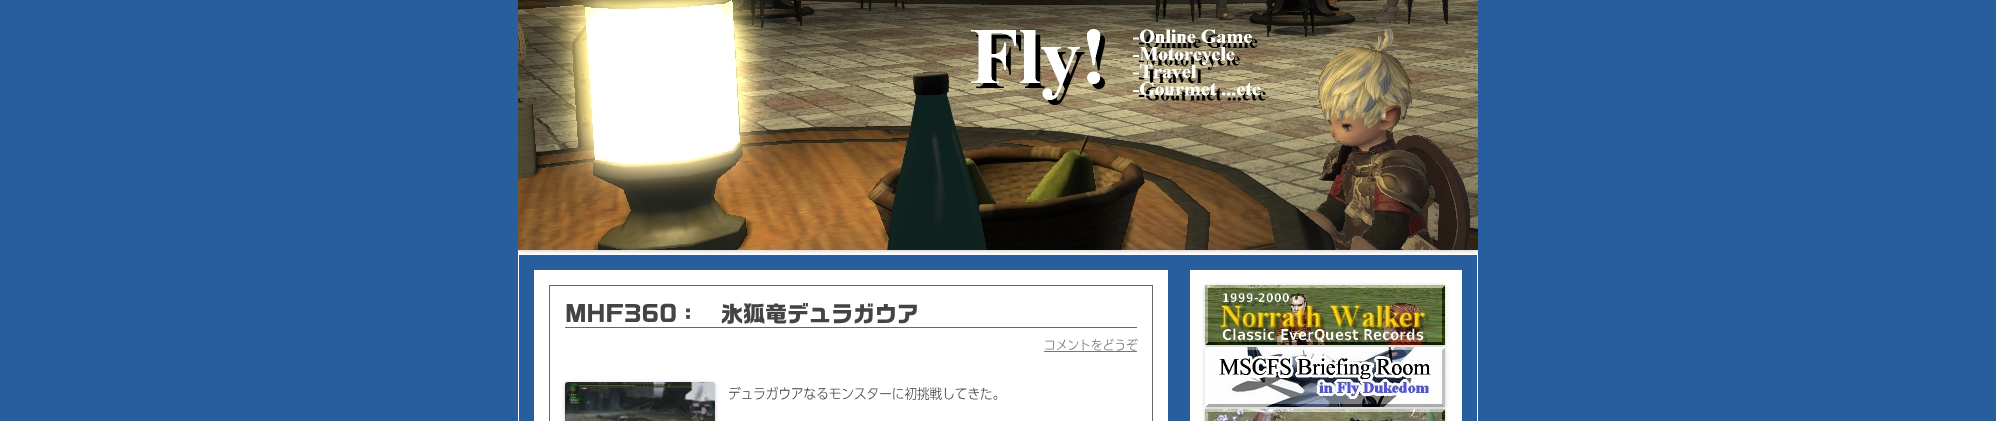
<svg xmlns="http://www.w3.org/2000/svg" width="1996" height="421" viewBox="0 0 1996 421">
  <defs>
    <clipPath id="clip1"><rect x="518" y="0" width="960" height="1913"/></clipPath>
    <filter id="blur1" x="-50%" y="-200%" width="200%" height="500%"><feGaussianBlur stdDeviation="2"/></filter>
  </defs>
  <rect width="100%" height="100%" fill="#285e9d"/>
  <rect x="518" y="250" width="960" height="4" fill="#ffffff"/>
  <rect x="518.5" y="254.5" width="959" height="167" fill="none" stroke="#ffffff"/>
  <g clip-path="url(#clip1)">
    <rect x="518" y="1" width="960" height="250" fill="#000000" fill-opacity="0.2" filter="url(#blur1)"/>
  </g>
  <image x="518" y="0" width="960" height="250" href="img1.png"/>
  <rect x="534" y="270" width="634" height="151" fill="#ffffff"/>
  <rect x="549" y="285" width="604" height="1" fill="#666666"/>
  <rect x="1152" y="285" width="1" height="136" fill="#666666"/>
  <rect x="549" y="285" width="1" height="136" fill="#666666"/>
  <rect x="565" y="327" width="572" height="1" fill="#666666"/>
  <text x="565" y="322" font-family="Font" font-size="22" fill="#444444">MHF360：　氷狐竜デュラガウア</text>
  <text x="1044" y="350" font-family="Font" font-size="13" font-weight="300" fill="#757575">コメントをどうぞ</text>
  <rect x="1044" y="351" width="93" height="1" fill="#757575"/>
  <rect x="565" y="383" width="150" height="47" rx="3" fill="#000000" fill-opacity="0.2" filter="url(#blur1)"/>
  <image x="565" y="382" width="150" height="39" href="img2.png"/>
  <text x="728" y="399" font-family="Font" font-size="14" font-weight="300" fill="#444444">デュラガウアなるモンスターに初挑戦してきた。</text>
  <rect x="1190" y="270" width="272" height="151" fill="#ffffff"/>
  <rect x="1205" y="286" width="240" height="60" fill="#000000" fill-opacity="0.2" filter="url(#blur1)"/>
  <image x="1205" y="285" width="240" height="60" href="img3.png"/>
  <rect x="1205" y="348" width="240" height="60" fill="#000000" fill-opacity="0.2" filter="url(#blur1)"/>
  <image x="1205" y="347" width="240" height="60" href="img4.png"/>
  <rect x="1205" y="410" width="240" height="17" fill="#000000" fill-opacity="0.2" filter="url(#blur1)"/>
  <image x="1205" y="409" width="240" height="12" href="img5.png"/>
</svg>
